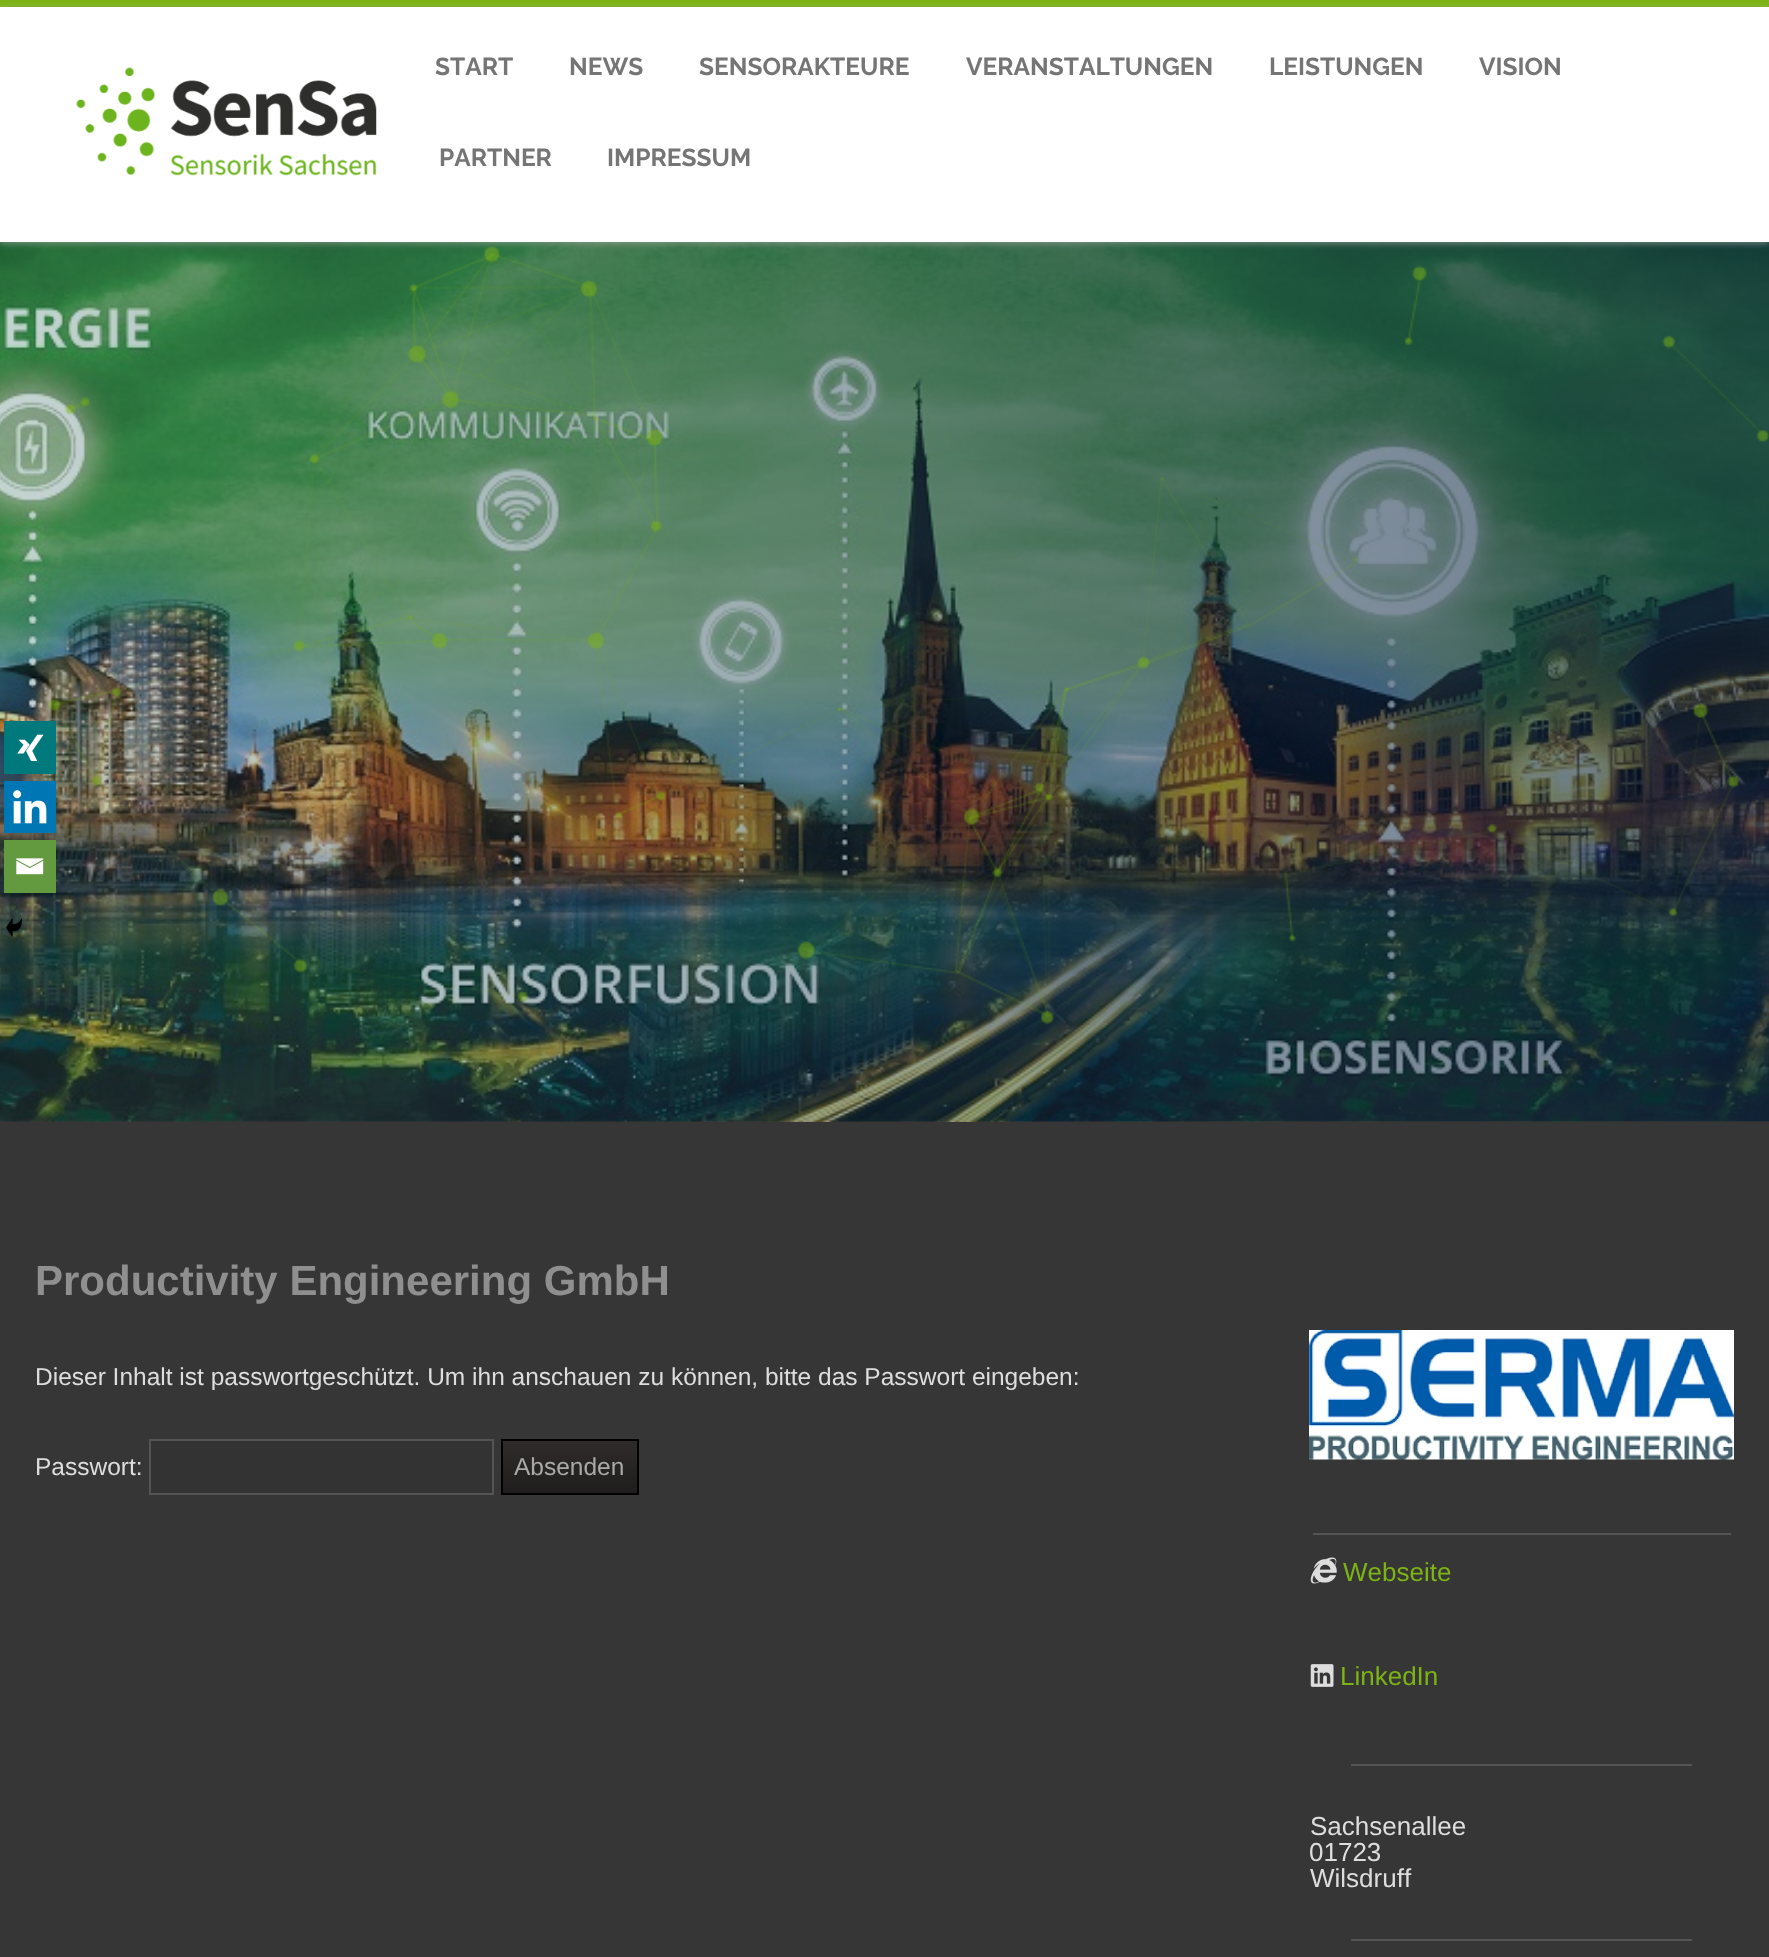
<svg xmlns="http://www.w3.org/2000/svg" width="1769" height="1957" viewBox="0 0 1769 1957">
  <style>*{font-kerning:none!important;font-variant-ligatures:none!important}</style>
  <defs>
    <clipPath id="clip1"><path d="M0 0H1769V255H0ZM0 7H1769V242H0Z" clip-rule="evenodd"/></clipPath>
    <filter id="blur1" x="-50%" y="-200%" width="200%" height="500%"><feGaussianBlur stdDeviation="3.5"/></filter>
    <linearGradient id="g1" gradientUnits="userSpaceOnUse" x1="570" y1="1440" x2="570" y2="1493"><stop offset="0" stop-color="#302b2b"/><stop offset="1" stop-color="#1f1d1d"/></linearGradient>
  </defs>
  <rect width="100%" height="100%" fill="#363636"/>
  <rect x="0" y="7" width="1769" height="235" fill="#ffffff"/>
  <rect x="0" y="0" width="1769" height="7" fill="#7db414"/>
  <image x="0" y="242" width="1769" height="880" href="img2.png"/>
  <image x="48" y="246" width="1721" height="779" href="img3.png"/>
  <g clip-path="url(#clip1)">
    <rect x="0" y="9" width="1769" height="234" fill="#a7a9a4" fill-opacity="0.75" filter="url(#blur1)"/>
  </g>
  <image x="76" y="67" width="301" height="109" href="img1.png"/>
  <text x="435" y="75" font-family="Raleway" font-size="24.5" font-weight="bold" fill="#757575">START</text>
  <text x="569" y="75" font-family="Raleway" font-size="24.5" font-weight="bold" fill="#757575">NEWS</text>
  <text x="699" y="75" font-family="Raleway" font-size="24.5" font-weight="bold" fill="#757575">SENSORAKTEURE</text>
  <text x="966" y="75" font-family="Raleway" font-size="24.5" font-weight="bold" fill="#757575">VERANSTALTUNGEN</text>
  <text x="1269" y="75" font-family="Raleway" font-size="24.5" font-weight="bold" fill="#757575">LEISTUNGEN</text>
  <text x="1479" y="75" font-family="Raleway" font-size="24.5" font-weight="bold" fill="#757575">VISION</text>
  <text x="439" y="166" font-family="Raleway" font-size="24.5" font-weight="bold" fill="#757575">PARTNER</text>
  <text x="607" y="166" font-family="Raleway" font-size="24.5" font-weight="bold" fill="#757575">IMPRESSUM</text>
  <text x="35" y="1295" font-family="Liberation Sans" font-size="42" font-weight="bold" fill="#8f8f8f">Productivity Engineering GmbH</text>
  <rect x="4" y="721" width="52" height="53" fill="#00797d"/>
  <image x="17" y="734" width="27" height="27" href="img4.png"/>
  <rect x="4" y="781" width="52" height="52" fill="#0077b5"/>
  <image x="13" y="790" width="34" height="34" href="img5.png"/>
  <rect x="4" y="840" width="52" height="53" fill="#649a3f"/>
  <image x="16" y="858" width="28" height="17" href="img6.png"/>
  <image x="6" y="918" width="16" height="19" href="img7.png"/>
  <text x="35" y="1385" font-family="Liberation Sans" font-size="24.5" fill="#dddddd">Dieser Inhalt ist passwortgeschützt. Um ihn anschauen zu können, bitte das Passwort eingeben:</text>
  <text x="35" y="1475" font-family="Liberation Sans" font-size="24.5" fill="#dddddd">Passwort:</text>
  <rect x="150" y="1440" width="343" height="54" fill="#333333" stroke="#545454" stroke-width="2"/>
  <rect x="503" y="1441" width="134" height="52" fill="url(#g1)"/>
  <rect x="502" y="1440" width="136" height="54" fill="none" stroke="#000000" stroke-width="2"/>
  <text x="514" y="1475" font-family="Liberation Sans" font-size="24.5" fill="#aaa9a9">Absenden</text>
  <rect x="1313" y="1533" width="418" height="2" fill="#545454"/>
  <image x="1309" y="1330" width="425" height="130" href="img8.png"/>
  <image x="1310" y="1557" width="27" height="27" href="img9.png"/>
  <text x="1343" y="1581" font-family="Liberation Sans" font-size="26" fill="#7db414">Webseite</text>
  <image x="1310" y="1664" width="24" height="23" href="img10.png"/>
  <text x="1340" y="1685" font-family="Liberation Sans" font-size="26" fill="#7db414">LinkedIn</text>
  <rect x="1351" y="1764" width="341" height="2" fill="#545454"/>
  <text x="1310" y="1835" font-family="Liberation Sans" font-size="26" fill="#dddddd">Sachsenallee</text>
  <text x="1309" y="1861" font-family="Liberation Sans" font-size="26" fill="#dddddd">01723</text>
  <text x="1310" y="1887" font-family="Liberation Sans" font-size="26" fill="#dddddd">Wilsdruff</text>
  <rect x="1351" y="1939" width="341" height="2" fill="#545454"/>
</svg>
